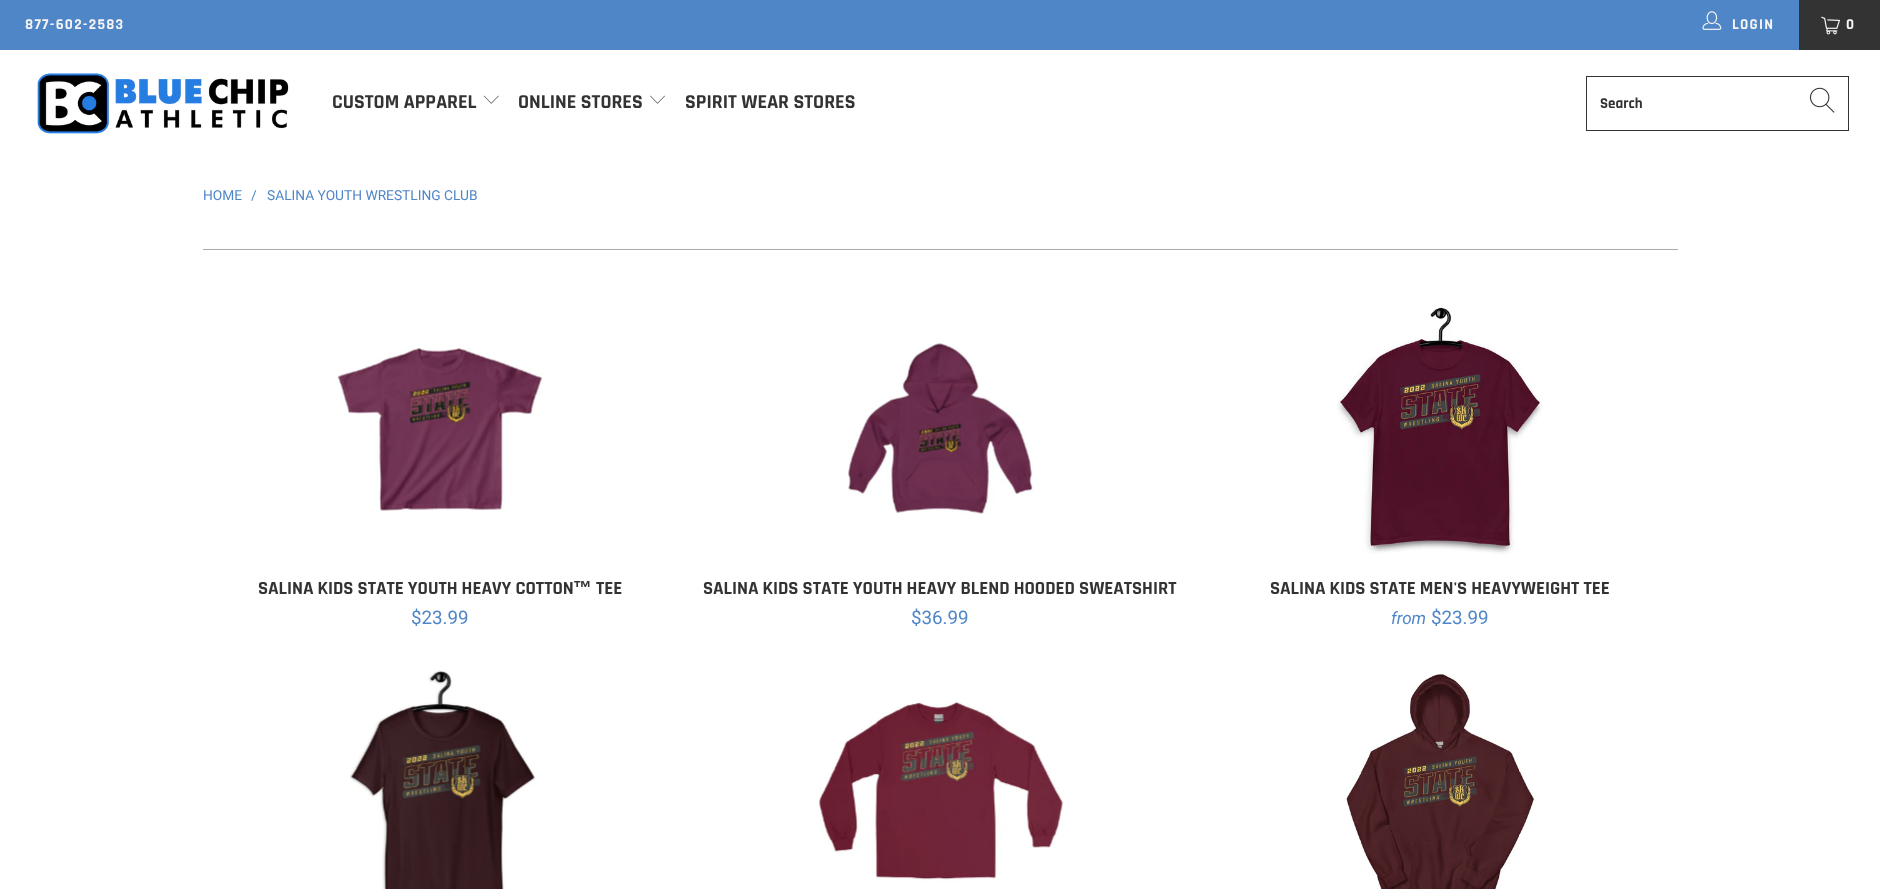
<svg xmlns="http://www.w3.org/2000/svg" width="1880" height="889" viewBox="0 0 1880 889">
  <rect width="100%" height="100%" fill="#ffffff"/>
  <rect x="0" y="0" width="1799" height="50" fill="#4f86c7"/>
  <text x="25" y="29" font-family="Rajdhani" font-size="15" font-weight="bold" letter-spacing="1.25" fill="#f4f4f4">877-602-2583</text>
  <image x="1702" y="11" width="20" height="19" href="img1.png"/>
  <text x="1732" y="29" font-family="Rajdhani" font-size="15" font-weight="bold" letter-spacing="1.25" fill="#f4f4f4">LOGIN</text>
  <rect x="1799" y="0" width="81" height="50" fill="#333333"/>
  <image x="1821" y="16" width="19" height="19" href="img2.png"/>
  <text x="1846" y="29" font-family="Rajdhani" font-size="15" font-weight="bold" letter-spacing="1.25" fill="#f4f4f4">0</text>
  <image x="37" y="73" width="252" height="61" href="img3.png"/>
  <text x="332" y="108" font-family="Rajdhani" font-size="20" font-weight="bold" fill="#333333">CUSTOM APPAREL</text>
  <image x="483" y="95" width="16" height="9" href="img4.png"/>
  <text x="518" y="108" font-family="Rajdhani" font-size="20" font-weight="bold" fill="#333333">ONLINE STORES</text>
  <image x="650" y="95" width="15" height="9" href="img5.png"/>
  <text x="685" y="108" font-family="Rajdhani" font-size="20" font-weight="bold" fill="#333333">SPIRIT WEAR STORES</text>
  <rect x="1586.5" y="76.5" width="262" height="54" fill="none" stroke="#333333"/>
  <text x="1600" y="108" font-family="Rajdhani" font-size="15" font-weight="bold" fill="#333333">Search</text>
  <image x="1809" y="87" width="26" height="26" href="img6.png"/>
  <text x="203" y="200" font-family="Roboto" font-size="13.75" fill="#4f86c7">HOME</text>
  <text x="251" y="200" font-family="Roboto" font-size="13.75" fill="#4f86c7">/</text>
  <text x="267" y="200" font-family="Roboto" font-size="13.75" fill="#4f86c7">SALINA YOUTH WRESTLING CLUB</text>
  <rect x="203" y="249" width="1475" height="1" fill="#aaaaaa"/>
  <image x="337" y="348" width="206" height="163" href="img7.png"/>
  <text x="258" y="594" font-family="Rajdhani" font-size="18.75" font-weight="bold" fill="#333333">SALINA KIDS STATE YOUTH HEAVY COTTON</text>
  <text x="573" y="594" font-family="Liberation Sans" font-size="18.75" font-weight="bold" fill="#333333">™</text>
  <text x="596" y="594" font-family="Rajdhani" font-size="18.75" font-weight="bold" fill="#333333">TEE</text>
  <text x="411" y="624" font-family="Roboto" font-size="18.75" fill="#4f86c7">$23.99</text>
  <image x="848" y="343" width="186" height="171" href="img8.png"/>
  <text x="703" y="594" font-family="Rajdhani" font-size="18.75" font-weight="bold" fill="#333333">SALINA KIDS STATE YOUTH HEAVY BLEND HOODED SWEATSHIRT</text>
  <text x="911" y="624" font-family="Roboto" font-size="18.75" fill="#4f86c7">$36.99</text>
  <image x="1337" y="307" width="205" height="247" href="img9.png"/>
  <text x="1270" y="594" font-family="Rajdhani" font-size="18.75" font-weight="bold" fill="#333333">SALINA KIDS STATE MEN'S HEAVYWEIGHT TEE</text>
  <text x="1391" y="624" font-family="Roboto" font-size="17" font-style="italic" fill="#4f86c7">from</text>
  <text x="1431" y="624" font-family="Roboto" font-size="18.75" fill="#4f86c7">$23.99</text>
  <image x="349" y="670" width="186" height="219" href="img10.png"/>
  <image x="819" y="702" width="245" height="180" href="img11.png"/>
  <image x="1345" y="674" width="190" height="215" href="img12.png"/>
</svg>
